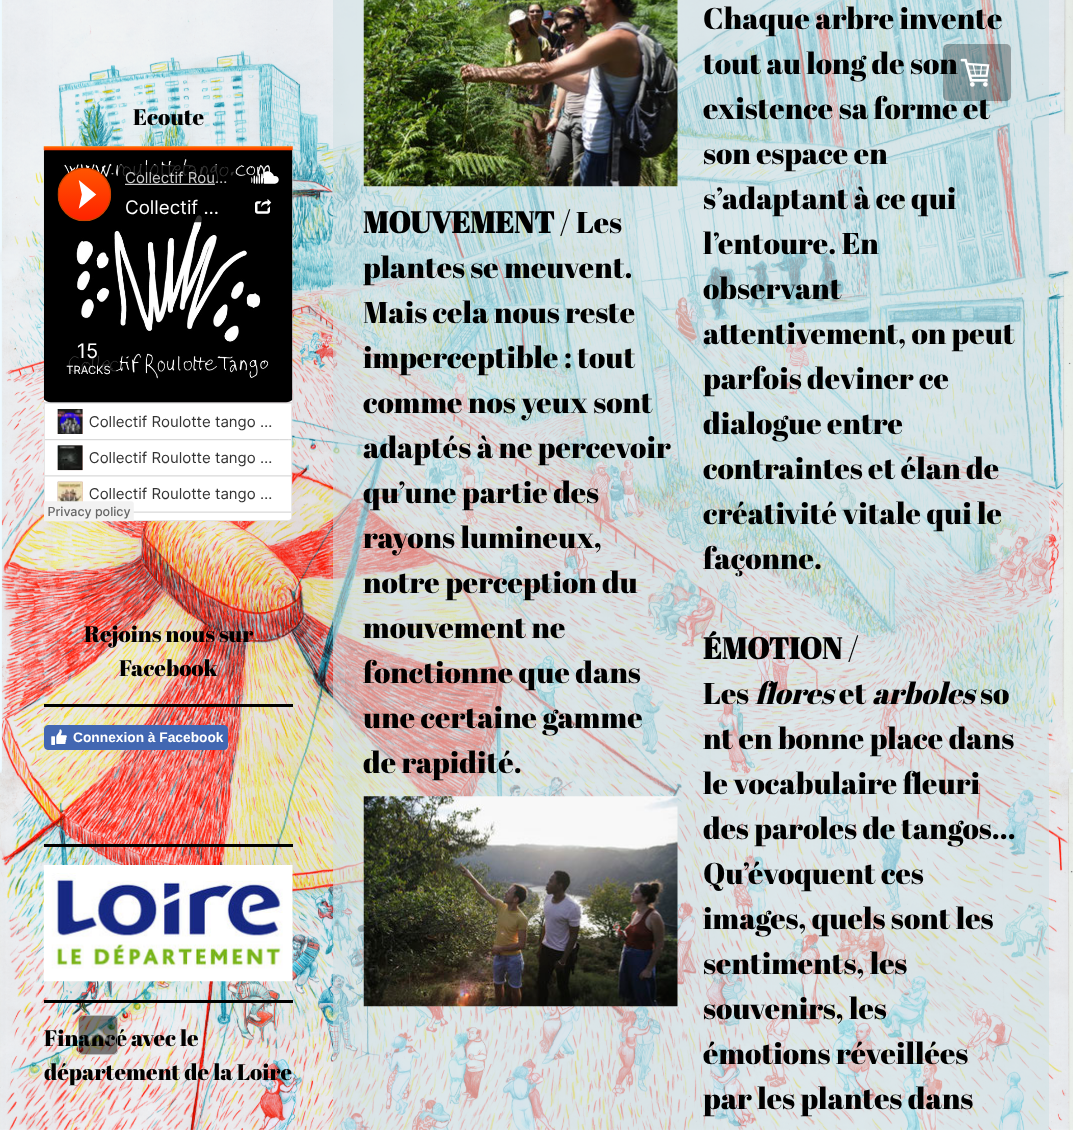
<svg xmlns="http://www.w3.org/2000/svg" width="1073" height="1130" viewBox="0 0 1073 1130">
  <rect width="100%" height="100%" fill="#ffffff"/>
  <image x="0" y="0" width="1073" height="1130" href="img1.png"/>
  <text x="133" y="125" font-family="Abril Fatface" font-size="22.5" fill="#000000">Ecoute</text>
  <image x="43" y="146" width="250" height="376" href="img2.png"/>
  <text x="84" y="642" font-family="Abril Fatface" font-size="22.5" fill="#000000">Rejoins nous sur</text>
  <text x="119" y="676" font-family="Abril Fatface" font-size="22.5" fill="#000000">Facebook</text>
  <rect x="44" y="704" width="249" height="3" fill="#000000"/>
  <rect x="44.5" y="725.5" width="183" height="24" rx="3.5" fill="#4267b2" stroke="#4267b2"/>
  <image x="51" y="729" width="16" height="16" href="img3.png"/>
  <text x="73" y="742" font-family="Liberation Sans" font-size="13.75" font-weight="bold" fill="#ffffff">Connexion à Facebook</text>
  <rect x="44" y="844" width="249" height="3" fill="#000000"/>
  <image x="43" y="865" width="250" height="117" href="img4.png"/>
  <rect x="44" y="1000" width="249" height="3" fill="#000000"/>
  <text x="44" y="1046" font-family="Abril Fatface" font-size="22.5" fill="#000000">Financé avec le</text>
  <text x="44" y="1080" font-family="Abril Fatface" font-size="22.5" fill="#000000">département de la Loire</text>
  <rect x="333" y="0" width="716" height="1130" fill="#d0e0e3" fill-opacity="0.59"/>
  <image x="363" y="0" width="315" height="187" href="img5.png"/>
  <text x="363" y="233" font-family="Abril Fatface" font-size="30" font-weight="bold" fill="#000000">MOUVEMENT</text>
  <text x="560" y="233" font-family="Abril Fatface" font-size="30" fill="#000000">/ Les</text>
  <text x="363" y="278" font-family="Abril Fatface" font-size="30" fill="#000000">plantes se meuvent.</text>
  <text x="363" y="323" font-family="Abril Fatface" font-size="30" fill="#000000">Mais cela nous reste</text>
  <text x="363" y="368" font-family="Abril Fatface" font-size="30" fill="#000000">imperceptible : tout</text>
  <text x="363" y="413" font-family="Abril Fatface" font-size="30" fill="#000000">comme nos yeux sont</text>
  <text x="363" y="458" font-family="Abril Fatface" font-size="30" fill="#000000">adaptés à ne percevoir</text>
  <text x="363" y="503" font-family="Abril Fatface" font-size="30" fill="#000000">qu’une partie des</text>
  <text x="363" y="548" font-family="Abril Fatface" font-size="30" fill="#000000">rayons lumineux,</text>
  <text x="363" y="593" font-family="Abril Fatface" font-size="30" fill="#000000">notre perception du</text>
  <text x="363" y="638" font-family="Abril Fatface" font-size="30" fill="#000000">mouvement ne</text>
  <text x="363" y="683" font-family="Abril Fatface" font-size="30" fill="#000000">fonctionne que dans</text>
  <text x="363" y="728" font-family="Abril Fatface" font-size="30" fill="#000000">une certaine gamme</text>
  <text x="363" y="773" font-family="Abril Fatface" font-size="30" fill="#000000">de rapidité.</text>
  <image x="363" y="796" width="315" height="211" href="img6.png"/>
  <text x="703" y="29" font-family="Abril Fatface" font-size="30" fill="#000000">Chaque arbre invente</text>
  <text x="703" y="74" font-family="Abril Fatface" font-size="30" fill="#000000">tout au long de son</text>
  <text x="703" y="119" font-family="Abril Fatface" font-size="30" fill="#000000">existence sa forme et</text>
  <text x="703" y="164" font-family="Abril Fatface" font-size="30" fill="#000000">son espace en</text>
  <text x="703" y="209" font-family="Abril Fatface" font-size="30" fill="#000000">s’adaptant à ce qui</text>
  <text x="703" y="254" font-family="Abril Fatface" font-size="30" fill="#000000">l’entoure. En</text>
  <text x="703" y="299" font-family="Abril Fatface" font-size="30" fill="#000000">observant</text>
  <text x="703" y="344" font-family="Abril Fatface" font-size="30" fill="#000000">attentivement, on peut</text>
  <text x="703" y="389" font-family="Abril Fatface" font-size="30" fill="#000000">parfois deviner ce</text>
  <text x="703" y="434" font-family="Abril Fatface" font-size="30" fill="#000000">dialogue entre</text>
  <text x="703" y="479" font-family="Abril Fatface" font-size="30" fill="#000000">contraintes et élan de</text>
  <text x="703" y="524" font-family="Abril Fatface" font-size="30" fill="#000000">créativité vitale qui le</text>
  <text x="703" y="569" font-family="Abril Fatface" font-size="30" fill="#000000">façonne.</text>
  <text x="703" y="659" font-family="Abril Fatface" font-size="30" font-weight="bold" fill="#000000">ÉMOTION</text>
  <text x="848" y="659" font-family="Abril Fatface" font-size="30" fill="#000000">/</text>
  <text x="703" y="704" font-family="Abril Fatface" font-size="30" fill="#000000">Les</text>
  <text x="755" y="704" font-family="Abril Fatface" font-size="30" font-style="italic" fill="#000000">flores</text>
  <text x="839" y="704" font-family="Abril Fatface" font-size="30" fill="#000000">et</text>
  <text x="872" y="704" font-family="Abril Fatface" font-size="30" font-style="italic" fill="#000000">arboles</text>
  <text x="980" y="704" font-family="Abril Fatface" font-size="30" fill="#000000">so</text>
  <text x="703" y="749" font-family="Abril Fatface" font-size="30" fill="#000000">nt en bonne place dans</text>
  <text x="703" y="794" font-family="Abril Fatface" font-size="30" fill="#000000">le vocabulaire fleuri</text>
  <text x="703" y="839" font-family="Abril Fatface" font-size="30" fill="#000000">des paroles de tangos…</text>
  <text x="703" y="884" font-family="Abril Fatface" font-size="30" fill="#000000">Qu’évoquent ces</text>
  <text x="703" y="929" font-family="Abril Fatface" font-size="30" fill="#000000">images, quels sont les</text>
  <text x="703" y="974" font-family="Abril Fatface" font-size="30" fill="#000000">sentiments, les</text>
  <text x="703" y="1019" font-family="Abril Fatface" font-size="30" fill="#000000">souvenirs, les</text>
  <text x="703" y="1064" font-family="Abril Fatface" font-size="30" fill="#000000">émotions réveillées</text>
  <text x="703" y="1109" font-family="Abril Fatface" font-size="30" fill="#000000">par les plantes dans</text>
  <rect x="943" y="44" width="68" height="57" rx="5" fill="#000000" fill-opacity="0.3"/>
  <image x="960" y="58" width="30" height="29" href="img7.png"/>
  <rect x="78" y="1015" width="40" height="40" rx="5" fill="#000000" fill-opacity="0.5"/>
  <rect x="78.5" y="1015.5" width="39" height="39" rx="4.5" fill="none" stroke="#ffffff" stroke-opacity="0.5"/>
  <image x="87" y="1028" width="22" height="14" href="img8.png"/>
</svg>
